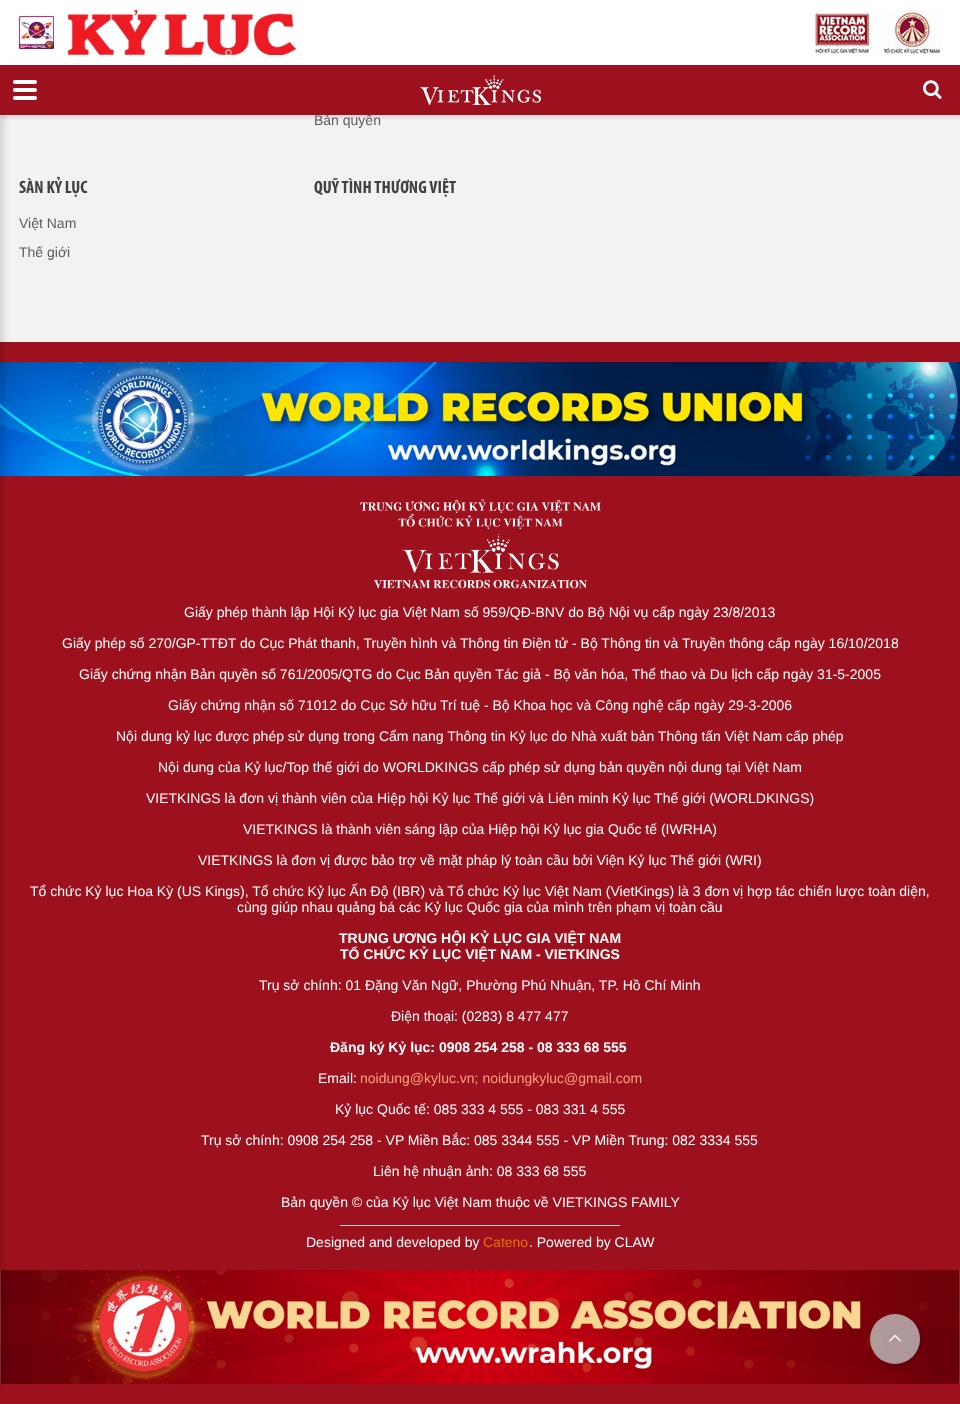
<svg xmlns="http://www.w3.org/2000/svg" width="960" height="1404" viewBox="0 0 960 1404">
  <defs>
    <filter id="blur1" x="-50%" y="-200%" width="200%" height="500%"><feGaussianBlur stdDeviation="2.5"/></filter>
    <filter id="blur2" x="-50%" y="-200%" width="200%" height="500%"><feGaussianBlur stdDeviation="1.5"/></filter>
    <clipPath id="clip1"><path d="M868 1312H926V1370H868ZM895 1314C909 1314 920 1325 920 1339C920 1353 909 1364 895 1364C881 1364 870 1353 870 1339C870 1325 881 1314 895 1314Z" clip-rule="evenodd"/></clipPath>
    <filter id="blur3" x="-50%" y="-200%" width="200%" height="500%"><feGaussianBlur stdDeviation="1"/></filter>
  </defs>
  <rect width="100%" height="100%" fill="#f2f2f2"/>
  <rect x="0" y="342" width="960" height="1062" fill="#9d111e"/>
  <image x="0" y="362" width="960" height="114" href="img6.png"/>
  <image x="0" y="1270" width="960" height="114" href="img8.png"/>
  <rect x="-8" y="-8" width="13" height="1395" fill="#000000" fill-opacity="0.1" filter="url(#blur1)"/>
  <rect x="0" y="68" width="960" height="50" fill="#000000" fill-opacity="0.1" filter="url(#blur2)"/>
  <text x="314" y="125" font-family="Liberation Sans" font-size="14" fill="#5c5c5c">Bản quyền</text>
  <rect x="0" y="65" width="960" height="50" fill="#9d111e"/>
  <image x="420" y="75" width="121" height="30" href="img1.png"/>
  <rect x="13" y="88" width="24" height="4" rx="2" fill="#ffffff"/>
  <rect x="13" y="80" width="24" height="4" rx="2" fill="#ffffff"/>
  <rect x="13" y="96" width="24" height="4" rx="2" fill="#ffffff"/>
  <rect x="0" y="0" width="960" height="65" fill="#ffffff"/>
  <image x="19" y="16" width="35" height="33" href="img2.png"/>
  <image x="68" y="10" width="228" height="45" href="img3.png"/>
  <image x="814" y="10" width="127" height="45" href="img4.png"/>
  <image x="923" y="80" width="19" height="19" href="img5.png"/>
  <text x="19" y="193" font-family="Myriad" font-size="18" font-weight="bold" fill="#424141">SÀN KỶ LỤC</text>
  <text x="19" y="228" font-family="Liberation Sans" font-size="14" fill="#5c5c5c">Việt Nam</text>
  <text x="19" y="257" font-family="Liberation Sans" font-size="14" fill="#5c5c5c">Thế giới</text>
  <text x="314" y="193" font-family="Myriad" font-size="18" font-weight="bold" fill="#424141">QUỸ TÌNH THƯƠNG VIỆT</text>
  <image x="360" y="499" width="241" height="90" href="img7.png"/>
  <text x="184" y="617" font-family="Liberation Sans" font-size="14" fill="#ffffff">Giấy phép thành lập Hội Kỷ lục gia Việt Nam số 959/QĐ-BNV do Bộ Nội vụ cấp ngày 23/8/2013</text>
  <text x="62" y="648" font-family="Liberation Sans" font-size="14" fill="#ffffff">Giấy phép số 270/GP-TTĐT do Cục Phát thanh, Truyền hình và Thông tin Điện tử - Bộ Thông tin và Truyền thông cấp ngày 16/10/2018</text>
  <text x="79" y="679" font-family="Liberation Sans" font-size="14" fill="#ffffff">Giấy chứng nhận Bản quyền số 761/2005/QTG do Cục Bản quyền Tác giả - Bộ văn hóa, Thể thao và Du lịch cấp ngày 31-5-2005</text>
  <text x="168" y="710" font-family="Liberation Sans" font-size="14" fill="#ffffff">Giấy chứng nhận số 71012 do Cục Sở hữu Trí tuệ - Bộ Khoa học và Công nghệ cấp ngày 29-3-2006</text>
  <text x="116" y="741" font-family="Liberation Sans" font-size="14" fill="#ffffff">Nội dung kỷ lục được phép sử dụng trong Cẩm nang Thông tin Kỷ lục do Nhà xuất bản Thông tấn Việt Nam cấp phép</text>
  <text x="158" y="772" font-family="Liberation Sans" font-size="14" fill="#ffffff">Nội dung của Kỷ lục/Top thế giới do WORLDKINGS cấp phép sử dụng bản quyền nội dung tại Việt Nam</text>
  <text x="146" y="803" font-family="Liberation Sans" font-size="14" fill="#ffffff">VIETKINGS là đơn vị thành viên của Hiệp hội Kỷ lục Thế giới và Liên minh Kỷ lục Thế giới (WORLDKINGS)</text>
  <text x="243" y="834" font-family="Liberation Sans" font-size="14" fill="#ffffff">VIETKINGS là thành viên sáng lập của Hiệp hội Kỷ lục gia Quốc tế (IWRHA)</text>
  <text x="198" y="865" font-family="Liberation Sans" font-size="14" fill="#ffffff">VIETKINGS là đơn vị được bảo trợ về mặt pháp lý toàn cầu bởi Viện Kỷ lục Thế giới (WRI)</text>
  <text x="30" y="896" font-family="Liberation Sans" font-size="14" fill="#ffffff">Tổ chức Kỷ lục Hoa Kỳ (US Kings), Tổ chức Kỷ lục Ấn Độ (IBR) và Tổ chức Kỷ lục Việt Nam (VietKings) là 3 đơn vị hợp tác chiến lược toàn diện,</text>
  <text x="237" y="912" font-family="Liberation Sans" font-size="14" fill="#ffffff">cùng giúp nhau quảng bá các Kỷ lục Quốc gia của mình trên phạm vị toàn cầu</text>
  <text x="339" y="943" font-family="Liberation Sans" font-size="14" font-weight="bold" fill="#ffffff">TRUNG ƯƠNG HỘI KỶ LỤC GIA VIỆT NAM</text>
  <text x="340" y="959" font-family="Liberation Sans" font-size="14" font-weight="bold" fill="#ffffff">TỔ CHỨC KỶ LỤC VIỆT NAM - VIETKINGS</text>
  <text x="259" y="990" font-family="Liberation Sans" font-size="14" fill="#ffffff">Trụ sở chính: 01 Đặng Văn Ngữ, Phường Phú Nhuận, TP. Hồ Chí Minh</text>
  <text x="391" y="1021" font-family="Liberation Sans" font-size="14" fill="#ffffff">Điện thoại: (0283) 8 477 477</text>
  <text x="330" y="1052" font-family="Liberation Sans" font-size="14" font-weight="bold" fill="#ffffff">Đăng ký Kỷ lục: 0908 254 258 - 08 333 68 555</text>
  <text x="318" y="1083" font-family="Liberation Sans" font-size="14" fill="#ffffff">Email:</text>
  <text x="360" y="1083" font-family="Liberation Sans" font-size="14" fill="#ffa07a">noidung@kyluc.vn; noidungkyluc@gmail.com</text>
  <text x="335" y="1114" font-family="Liberation Sans" font-size="14" fill="#ffffff">Kỷ lục Quốc tế: 085 333 4 555 - 083 331 4 555</text>
  <text x="201" y="1145" font-family="Liberation Sans" font-size="14" fill="#ffffff">Trụ sở chính: 0908 254 258 - VP Miền Bắc: 085 3344 555 - VP Miền Trung: 082 3334 555</text>
  <text x="373" y="1176" font-family="Liberation Sans" font-size="14" fill="#ffffff">Liên hệ nhuận ảnh: 08 333 68 555</text>
  <text x="281" y="1207" font-family="Liberation Sans" font-size="14" fill="#ffffff">Bản quyền © của Kỷ lục Việt Nam thuộc về VIETKINGS FAMILY</text>
  <rect x="340" y="1225" width="280" height="1" fill="#d2d3d4"/>
  <text x="306" y="1247" font-family="Liberation Sans" font-size="14" fill="#ffffff">Designed and developed by</text>
  <text x="483" y="1247" font-family="Liberation Sans" font-size="14" fill="#e37500">Cateno</text>
  <text x="529" y="1247" font-family="Liberation Sans" font-size="14" fill="#ffffff">. Powered by CLAW</text>
  <g clip-path="url(#clip1)">
    <rect x="872" y="1316" width="50" height="50" rx="25" fill="#000000" fill-opacity="0.16" filter="url(#blur3)"/>
  </g>
  <circle cx="895" cy="1339" r="25" fill="#bebebe" fill-opacity="0.8"/>
  <image x="889" y="1334" width="13" height="8" href="img9.png"/>
</svg>
